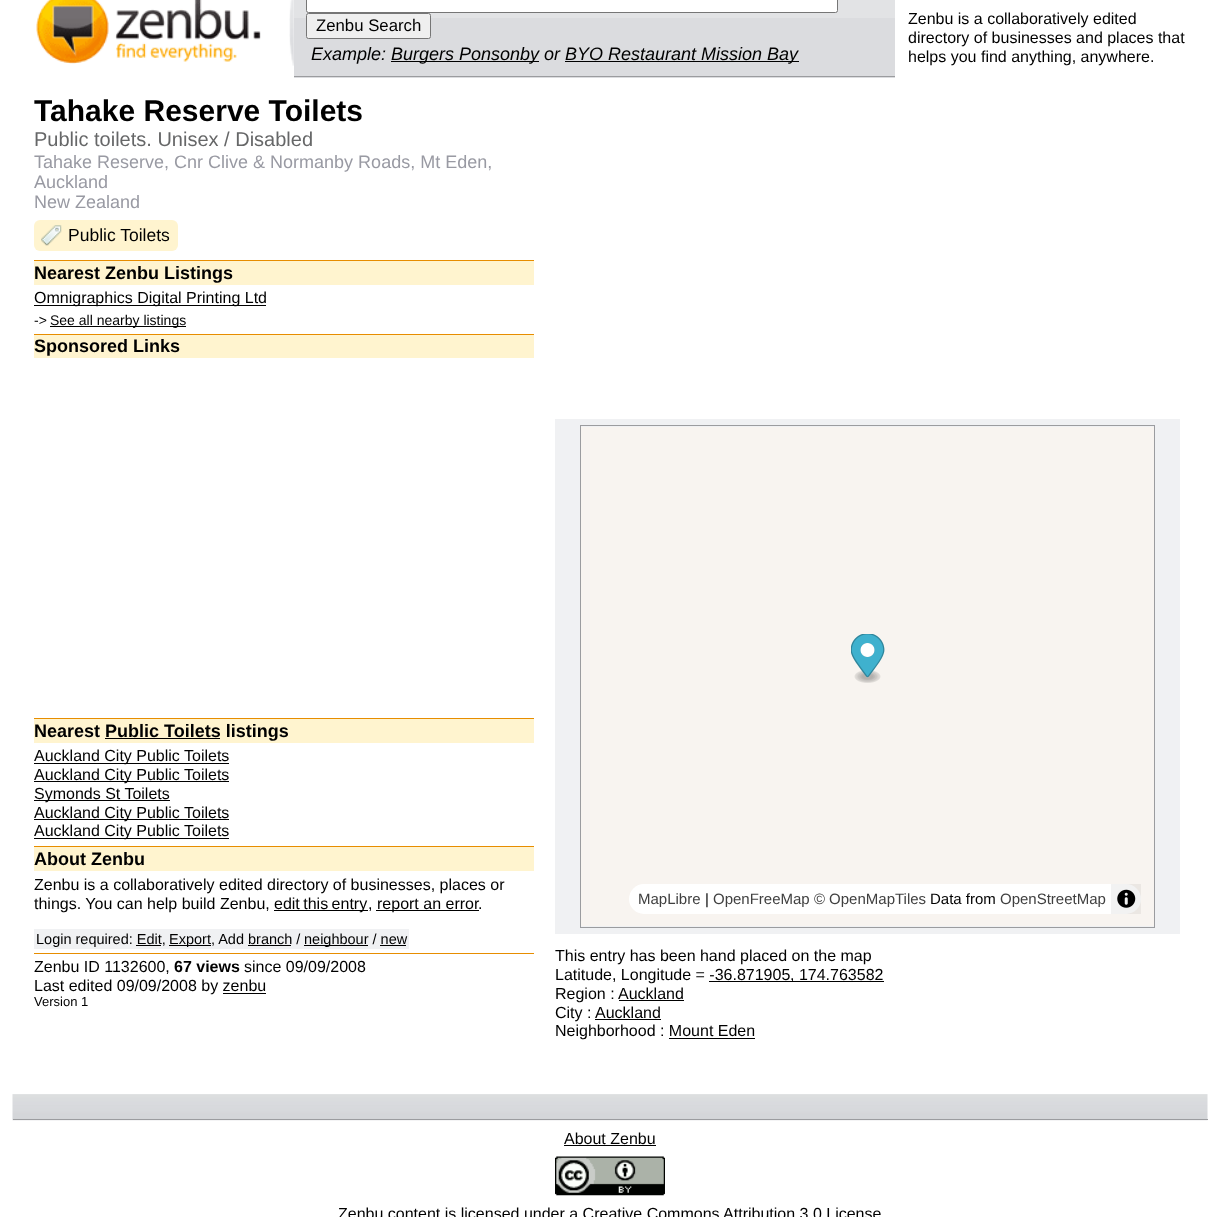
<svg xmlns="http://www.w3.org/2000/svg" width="1220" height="1217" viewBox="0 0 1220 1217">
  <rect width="100%" height="100%" fill="#ffffff"/>
  <image x="289" y="0" width="5" height="66" href="img1.png"/>
  <image x="36" y="0" width="225" height="64" href="img2.png"/>
  <rect x="294" y="18" width="601" height="60" fill="#dbdcdf"/>
  <rect x="294" y="0" width="601" height="18" fill="#e2e3e5"/>
  <rect x="294" y="76" width="601" height="1" fill="#9b9c9f"/>
  <rect x="306.5" y="-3.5" width="531" height="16" rx="2" fill="#ffffff" stroke="#767676"/>
  <rect x="306.5" y="13.5" width="124" height="25" rx="2" fill="#efefef" stroke="#767676"/>
  <text x="316" y="31" font-family="Liberation Sans" font-size="16.75" fill="#000000">Zenbu Search</text>
  <text x="311" y="60" font-family="Liberation Sans" font-size="18" font-style="italic" fill="#000000">Example:</text>
  <rect x="391" y="61" width="148" height="1" fill="#000000"/>
  <text x="391" y="60" font-family="Liberation Sans" font-size="18" font-style="italic" fill="#000000">Burgers Ponsonby or</text>
  <rect x="565" y="61" width="234" height="1" fill="#000000"/>
  <text x="565" y="60" font-family="Liberation Sans" font-size="18" font-style="italic" fill="#000000">BYO Restaurant Mission Bay</text>
  <text x="908" y="24" font-family="Liberation Sans" font-size="16" fill="#000000">Zenbu is a collaboratively edited</text>
  <text x="908" y="43" font-family="Liberation Sans" font-size="16" fill="#000000">directory of businesses and places that</text>
  <text x="908" y="62" font-family="Liberation Sans" font-size="16" fill="#000000">helps you find anything, anywhere.</text>
  <text x="34" y="121" font-family="Liberation Sans" font-size="30" font-weight="bold" fill="#000000">Tahake Reserve Toilets</text>
  <text x="34" y="146" font-family="Liberation Sans" font-size="20" fill="#666768">Public toilets. Unisex / Disabled</text>
  <text x="34" y="168" font-family="Liberation Sans" font-size="18" fill="#999aa3">Tahake Reserve, Cnr Clive &amp; Normanby Roads, Mt Eden,</text>
  <text x="34" y="188" font-family="Liberation Sans" font-size="18" fill="#999aa3">Auckland</text>
  <text x="34" y="208" font-family="Liberation Sans" font-size="18" fill="#999aa3">New Zealand</text>
  <rect x="34" y="220" width="144" height="31" rx="6" fill="#fff4cf"/>
  <image x="41" y="225" width="21" height="21" href="img3.png"/>
  <text x="68" y="241" font-family="Liberation Sans" font-size="17.5" fill="#000000">Public Toilets</text>
  <rect x="34" y="261" width="500" height="24" fill="#fff4cf"/>
  <rect x="34" y="260" width="500" height="1" fill="#e78d00"/>
  <text x="34" y="279" font-family="Liberation Sans" font-size="18" font-weight="bold" fill="#000000">Nearest Zenbu Listings</text>
  <rect x="34" y="305" width="232" height="1" fill="#000000"/>
  <text x="34" y="303" font-family="Liberation Sans" font-size="16" fill="#000000">Omnigraphics Digital Printing Ltd</text>
  <text x="34" y="325" font-family="Liberation Sans" font-size="14" fill="#000000">-&gt;</text>
  <rect x="50" y="326" width="136" height="1" fill="#000000"/>
  <text x="50" y="325" font-family="Liberation Sans" font-size="14" fill="#000000">See all nearby listings</text>
  <rect x="34" y="335" width="500" height="23" fill="#fff4cf"/>
  <rect x="34" y="334" width="500" height="1" fill="#e78d00"/>
  <text x="34" y="352" font-family="Liberation Sans" font-size="18" font-weight="bold" fill="#000000">Sponsored Links</text>
  <rect x="34" y="719" width="500" height="24" fill="#fff4cf"/>
  <rect x="34" y="718" width="500" height="1" fill="#e78d00"/>
  <text x="34" y="737" font-family="Liberation Sans" font-size="18" font-weight="bold" fill="#000000">Nearest Public Toilets listings</text>
  <rect x="105" y="738" width="115" height="1" fill="#000000"/>
  <rect x="34" y="763" width="195" height="1" fill="#000000"/>
  <text x="34" y="761" font-family="Liberation Sans" font-size="16" fill="#000000">Auckland City Public Toilets</text>
  <rect x="34" y="781" width="195" height="1" fill="#000000"/>
  <text x="34" y="780" font-family="Liberation Sans" font-size="16" fill="#000000">Auckland City Public Toilets</text>
  <rect x="34" y="800" width="136" height="1" fill="#000000"/>
  <text x="34" y="799" font-family="Liberation Sans" font-size="16" fill="#000000">Symonds St Toilets</text>
  <rect x="34" y="819" width="195" height="1" fill="#000000"/>
  <text x="34" y="818" font-family="Liberation Sans" font-size="16" fill="#000000">Auckland City Public Toilets</text>
  <rect x="34" y="838" width="195" height="1" fill="#000000"/>
  <text x="34" y="836" font-family="Liberation Sans" font-size="16" fill="#000000">Auckland City Public Toilets</text>
  <rect x="34" y="847" width="500" height="24" fill="#fff4cf"/>
  <rect x="34" y="846" width="500" height="1" fill="#e78d00"/>
  <text x="34" y="865" font-family="Liberation Sans" font-size="18" font-weight="bold" fill="#000000">About Zenbu</text>
  <text x="34" y="890" font-family="Liberation Sans" font-size="16" fill="#000000">Zenbu is a collaboratively edited directory of businesses, places or</text>
  <text x="34" y="909" font-family="Liberation Sans" font-size="16" fill="#000000">things. You can help build Zenbu,</text>
  <rect x="274" y="910" width="94" height="1" fill="#000000"/>
  <text x="274" y="909" word-spacing="-1" font-family="Liberation Sans" font-size="16" fill="#000000">edit this entry</text>
  <text x="368" y="909" font-family="Liberation Sans" font-size="16" fill="#000000">,</text>
  <rect x="376" y="910" width="103" height="1" fill="#000000"/>
  <text x="377" y="909" font-family="Liberation Sans" font-size="16" fill="#000000">report an error</text>
  <text x="478" y="909" font-family="Liberation Sans" font-size="16" fill="#000000">.</text>
  <rect x="34" y="929" width="375" height="20" fill="#f0f1f3"/>
  <text x="36" y="944" font-family="Liberation Sans" font-size="14.5" fill="#000000">Login required: Edit,</text>
  <rect x="136" y="945" width="25" height="1" fill="#000000"/>
  <rect x="169" y="945" width="42" height="1" fill="#000000"/>
  <text x="169" y="944" font-family="Liberation Sans" font-size="14.5" fill="#000000">Export, Add branch /</text>
  <rect x="248" y="945" width="43" height="1" fill="#000000"/>
  <rect x="304" y="945" width="64" height="1" fill="#000000"/>
  <text x="304" y="944" font-family="Liberation Sans" font-size="14.5" fill="#000000">neighbour / new</text>
  <rect x="380" y="945" width="26" height="1" fill="#000000"/>
  <rect x="34" y="953" width="500" height="1" fill="#e78d00"/>
  <text x="34" y="972" font-family="Liberation Sans" font-size="16" fill="#000000">Zenbu ID 1132600,</text>
  <text x="174" y="972" font-family="Liberation Sans" font-size="16" font-weight="bold" fill="#000000">67 views</text>
  <text x="244" y="972" font-family="Liberation Sans" font-size="16" fill="#000000">since 09/09/2008</text>
  <text x="34" y="991" font-family="Liberation Sans" font-size="16" fill="#000000">Last edited 09/09/2008 by zenbu</text>
  <rect x="223" y="993" width="43" height="1" fill="#000000"/>
  <text x="34" y="1006" font-family="Liberation Sans" font-size="13" fill="#000000">Version 1</text>
  <rect x="555" y="419" width="625" height="515" fill="#f0f1f3"/>
  <rect x="580.5" y="425.5" width="574" height="502" fill="none" stroke="#9b9c9f"/>
  <rect x="581" y="427" width="573" height="499" fill="#f8f4f0"/>
  <image x="851" y="634" width="34" height="49" href="img4.png"/>
  <rect x="629" y="884" width="512" height="30" rx="15" fill="#ffffff"/>
  <text x="638" y="904" font-family="Liberation Sans" font-size="15" fill="#404040">MapLibre</text>
  <text x="705" y="904" font-family="Liberation Sans" font-size="15" fill="#000000">|</text>
  <text x="713" y="904" font-family="Liberation Sans" font-size="15" fill="#404040">OpenFreeMap © OpenMapTiles</text>
  <text x="930" y="904" font-family="Liberation Sans" font-size="15" fill="#000000">Data from</text>
  <text x="1000" y="904" font-family="Liberation Sans" font-size="15" fill="#404040">OpenStreetMap</text>
  <rect x="1111" y="884" width="30" height="30" fill="#000000" fill-opacity="0.05"/>
  <image x="1117" y="889" width="19" height="19" href="img5.png"/>
  <text x="555" y="961" font-family="Liberation Sans" font-size="16" fill="#000000">This entry has been hand placed on the map</text>
  <text x="555" y="980" font-family="Liberation Sans" font-size="16" fill="#000000">Latitude, Longitude = -36.871905</text>
  <rect x="709" y="981" width="175" height="1" fill="#000000"/>
  <text x="790" y="980" font-family="Liberation Sans" font-size="16" fill="#000000">, 174.763582</text>
  <text x="555" y="999" font-family="Liberation Sans" font-size="16" fill="#000000">Region :</text>
  <text x="618" y="999" font-family="Liberation Sans" font-size="16" fill="#000000">Auckland</text>
  <rect x="619" y="1000" width="65" height="1" fill="#000000"/>
  <text x="555" y="1018" font-family="Liberation Sans" font-size="16" fill="#000000">City :</text>
  <text x="595" y="1018" font-family="Liberation Sans" font-size="16" fill="#000000">Auckland</text>
  <rect x="595" y="1019" width="66" height="1" fill="#000000"/>
  <text x="555" y="1036" font-family="Liberation Sans" font-size="16" fill="#000000">Neighborhood : Mount Eden</text>
  <rect x="669" y="1038" width="86" height="1" fill="#000000"/>
  <image x="12" y="1094" width="1196" height="27" href="img6.png"/>
  <rect x="13" y="1119" width="1195" height="1" fill="#9b9c9f"/>
  <text x="564" y="1144" font-family="Liberation Sans" font-size="16" fill="#000000">About Zenbu</text>
  <rect x="564" y="1145" width="92" height="1" fill="#000000"/>
  <image x="555" y="1156" width="110" height="40" href="img7.png"/>
  <text x="338" y="1219" font-family="Liberation Sans" font-size="16" fill="#000000">Zenbu content is licensed under a Creative Commons Attribution 3.0 License</text>
</svg>
